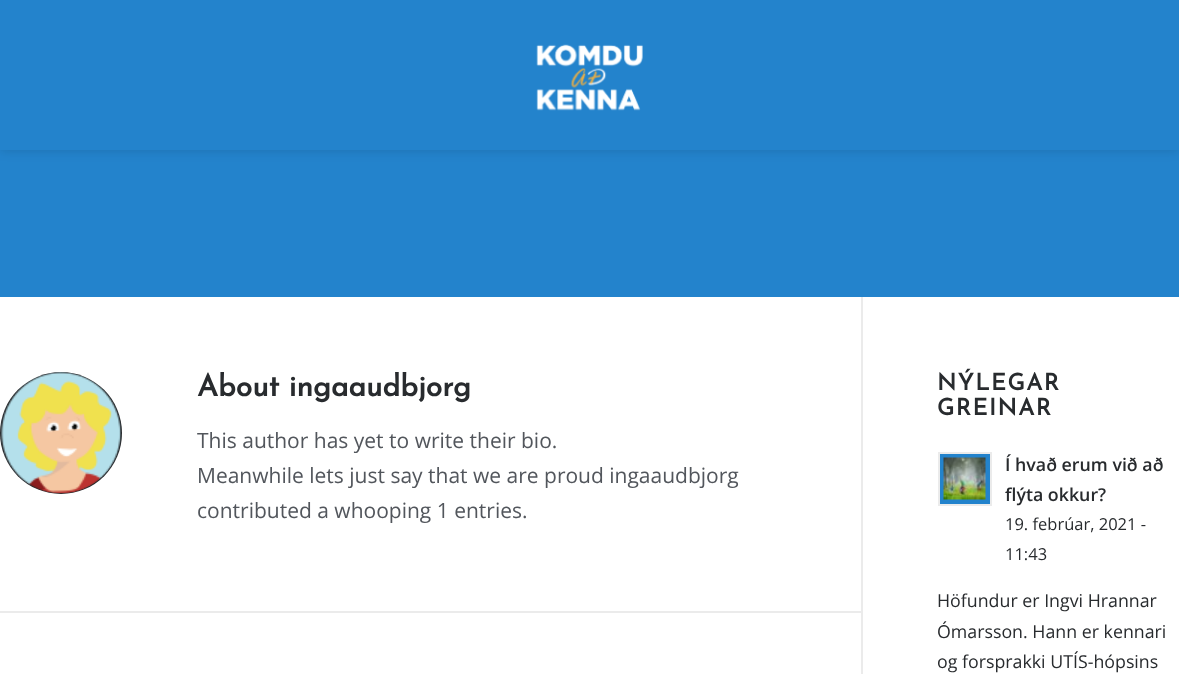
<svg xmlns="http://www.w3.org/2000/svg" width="1179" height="674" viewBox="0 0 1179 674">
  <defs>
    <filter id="blur1" x="-50%" y="-200%" width="200%" height="500%"><feGaussianBlur stdDeviation="6"/></filter>
  </defs>
  <rect width="100%" height="100%" fill="#2383cc"/>
  <rect x="0" y="0" width="1179" height="150" fill="#000000" fill-opacity="0.15" filter="url(#blur1)"/>
  <rect x="0" y="0" width="1179" height="150" fill="#2383cc"/>
  <image x="536" y="44" width="107" height="67" href="img1.png"/>
  <rect x="0" y="297" width="1179" height="377" fill="#ffffff"/>
  <rect x="861" y="297" width="2" height="377" fill="#ebebeb"/>
  <rect x="0" y="611" width="861" height="2" fill="#ebebeb"/>
  <circle cx="61" cy="433" r="61" fill="#282b2e"/>
  <image x="1" y="372" width="120" height="122" href="img2.png"/>
  <text x="197" y="396" font-family="Josefin Sans" font-size="30" font-weight="bold" fill="#282b2e">About ingaaudbjorg</text>
  <text x="197" y="448" font-family="Open Sans" font-size="21" fill="#52565c">This author has yet to write their bio.</text>
  <text x="197" y="483" font-family="Open Sans" font-size="21" fill="#52565c">Meanwhile lets just say that we are proud ingaaudbjorg</text>
  <text x="197" y="518" font-family="Open Sans" font-size="21" fill="#52565c">contributed a whooping 1 entries.</text>
  <text x="937" y="390" font-family="Josefin Sans" font-size="23" font-weight="bold" letter-spacing="1.5" fill="#282b2e">NÝLEGAR</text>
  <text x="937" y="415" font-family="Josefin Sans" font-size="23" font-weight="bold" letter-spacing="1.5" fill="#282b2e">GREINAR</text>
  <rect x="939" y="453" width="52" height="52" fill="#2383cc" stroke="#ebebeb" stroke-width="2"/>
  <image x="943" y="457" width="43" height="43" href="img3.png"/>
  <text x="1005" y="471" font-family="Open Sans" font-size="17.8" font-weight="600" fill="#282b2e">Í hvað erum við að</text>
  <text x="1005" y="501" font-family="Open Sans" font-size="17.8" font-weight="600" fill="#282b2e">flýta okkur?</text>
  <text x="1005" y="530" font-family="Open Sans" font-size="16.5" fill="#282b2e">19. febrúar, 2021 -</text>
  <text x="1005" y="560" font-family="Open Sans" font-size="16.5" fill="#282b2e">11:43</text>
  <text x="937" y="607" font-family="Open Sans" font-size="17.8" fill="#282b2e">Höfundur er Ingvi Hrannar</text>
  <text x="937" y="638" font-family="Open Sans" font-size="17.8" fill="#282b2e">Ómarsson. Hann er kennari</text>
  <text x="937" y="668" font-family="Open Sans" font-size="17.8" fill="#282b2e">og forsprakki UTÍS-hópsins</text>
</svg>
